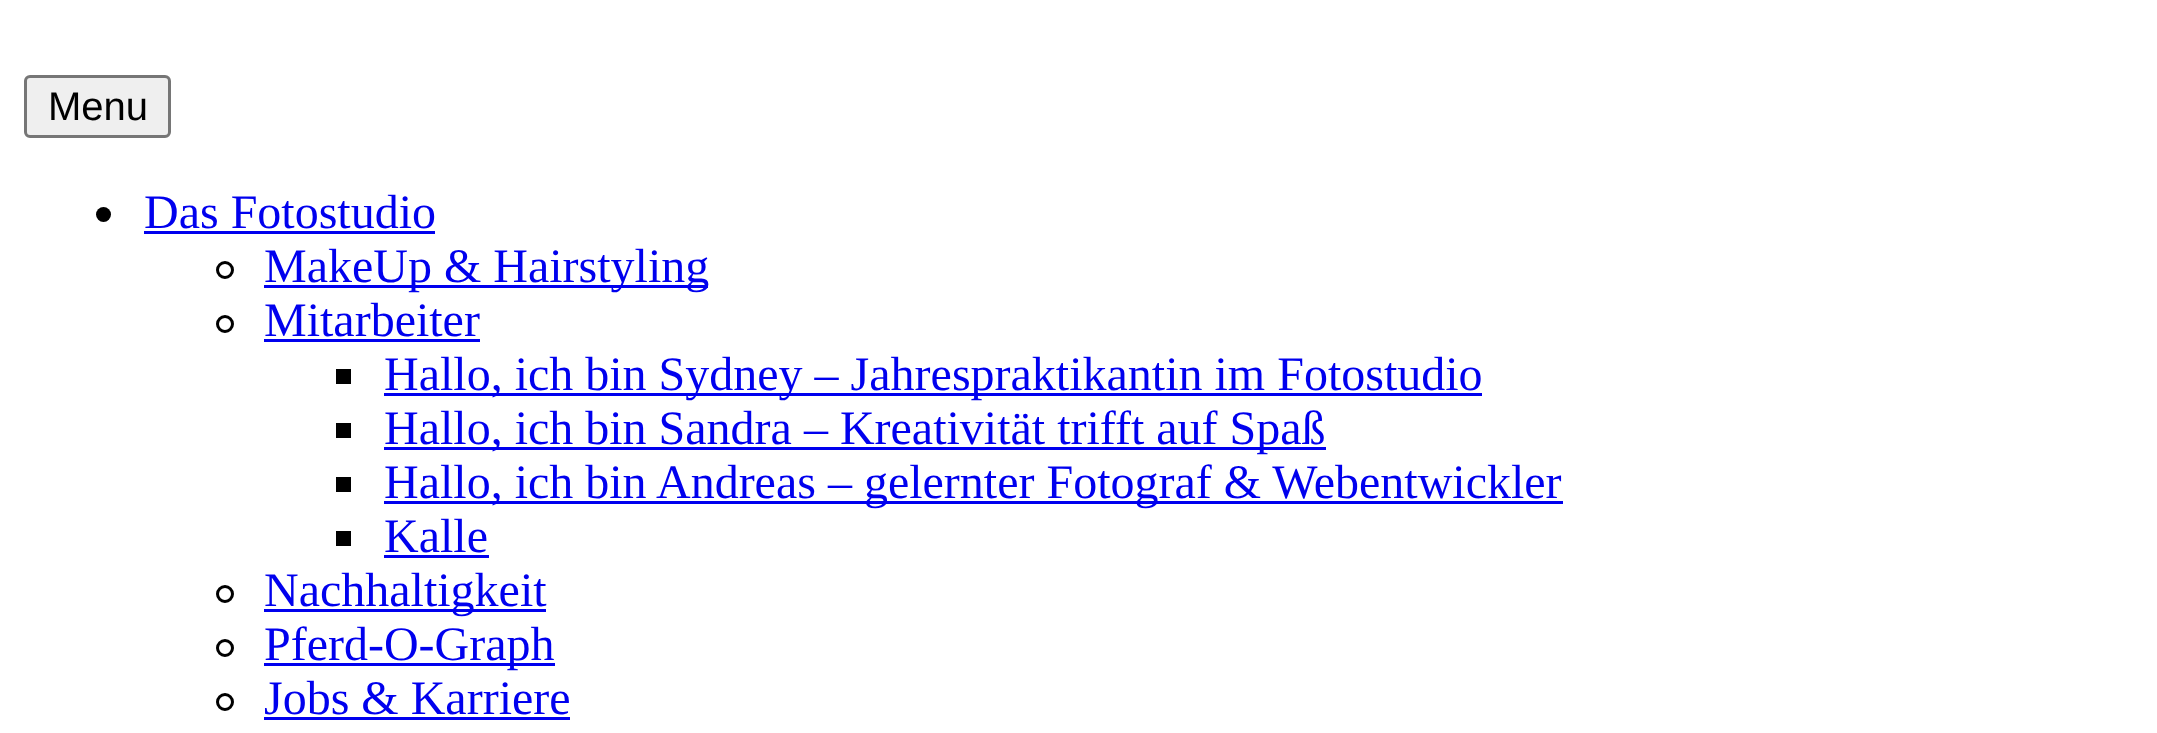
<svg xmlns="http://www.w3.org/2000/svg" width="2157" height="733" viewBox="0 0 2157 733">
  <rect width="100%" height="100%" fill="#ffffff"/>
  <rect x="25.5" y="76.5" width="144" height="60" rx="4.5" fill="#efefef" stroke="#767676" stroke-width="3"/>
  <text x="48" y="120" font-family="Liberation Sans" font-size="40" fill="#000000">Menu</text>
  <circle cx="103.5" cy="214.5" r="7.5" fill="#000000"/>
  <text x="144" y="228" font-family="Liberation Serif" font-size="48" fill="#0000ee">Das Fotostudio</text>
  <rect x="144" y="231" width="291" height="3" fill="#0000ee"/>
  <circle cx="225" cy="270" r="7.5" fill="none" stroke="#000000" stroke-width="3"/>
  <rect x="264" y="285" width="444" height="3" fill="#0000ee"/>
  <text x="264" y="282" font-family="Liberation Serif" font-size="48" fill="#0000ee">MakeUp &amp; Hairstyling</text>
  <circle cx="225" cy="324" r="7.5" fill="none" stroke="#000000" stroke-width="3"/>
  <text x="264" y="336" font-family="Liberation Serif" font-size="48" fill="#0000ee">Mitarbeiter</text>
  <rect x="264" y="339" width="216" height="3" fill="#0000ee"/>
  <rect x="336" y="369" width="15" height="15" fill="#000000"/>
  <rect x="384" y="393" width="1098" height="3" fill="#0000ee"/>
  <text x="384" y="390" font-family="Liberation Serif" font-size="48" fill="#0000ee">Hallo, ich bin Sydney – Jahrespraktikantin im Fotostudio</text>
  <rect x="336" y="423" width="15" height="15" fill="#000000"/>
  <rect x="384" y="447" width="942" height="3" fill="#0000ee"/>
  <text x="384" y="444" font-family="Liberation Serif" font-size="48" fill="#0000ee">Hallo, ich bin Sandra – Kreativität trifft auf Spaß</text>
  <rect x="336" y="477" width="15" height="15" fill="#000000"/>
  <rect x="384" y="501" width="1179" height="3" fill="#0000ee"/>
  <text x="384" y="498" font-family="Liberation Serif" font-size="48" fill="#0000ee">Hallo, ich bin Andreas – gelernter Fotograf &amp; Webentwickler</text>
  <rect x="336" y="531" width="15" height="15" fill="#000000"/>
  <text x="384" y="552" font-family="Liberation Serif" font-size="48" fill="#0000ee">Kalle</text>
  <rect x="384" y="555" width="105" height="3" fill="#0000ee"/>
  <circle cx="225" cy="594" r="7.5" fill="none" stroke="#000000" stroke-width="3"/>
  <rect x="264" y="609" width="282" height="3" fill="#0000ee"/>
  <text x="264" y="606" font-family="Liberation Serif" font-size="48" fill="#0000ee">Nachhaltigkeit</text>
  <circle cx="225" cy="648" r="7.5" fill="none" stroke="#000000" stroke-width="3"/>
  <rect x="264" y="663" width="291" height="3" fill="#0000ee"/>
  <text x="264" y="660" font-family="Liberation Serif" font-size="48" fill="#0000ee">Pferd-O-Graph</text>
  <circle cx="225" cy="702" r="7.5" fill="none" stroke="#000000" stroke-width="3"/>
  <text x="264" y="714" font-family="Liberation Serif" font-size="48" fill="#0000ee">Jobs &amp; Karriere</text>
  <rect x="264" y="717" width="306" height="3" fill="#0000ee"/>
</svg>
